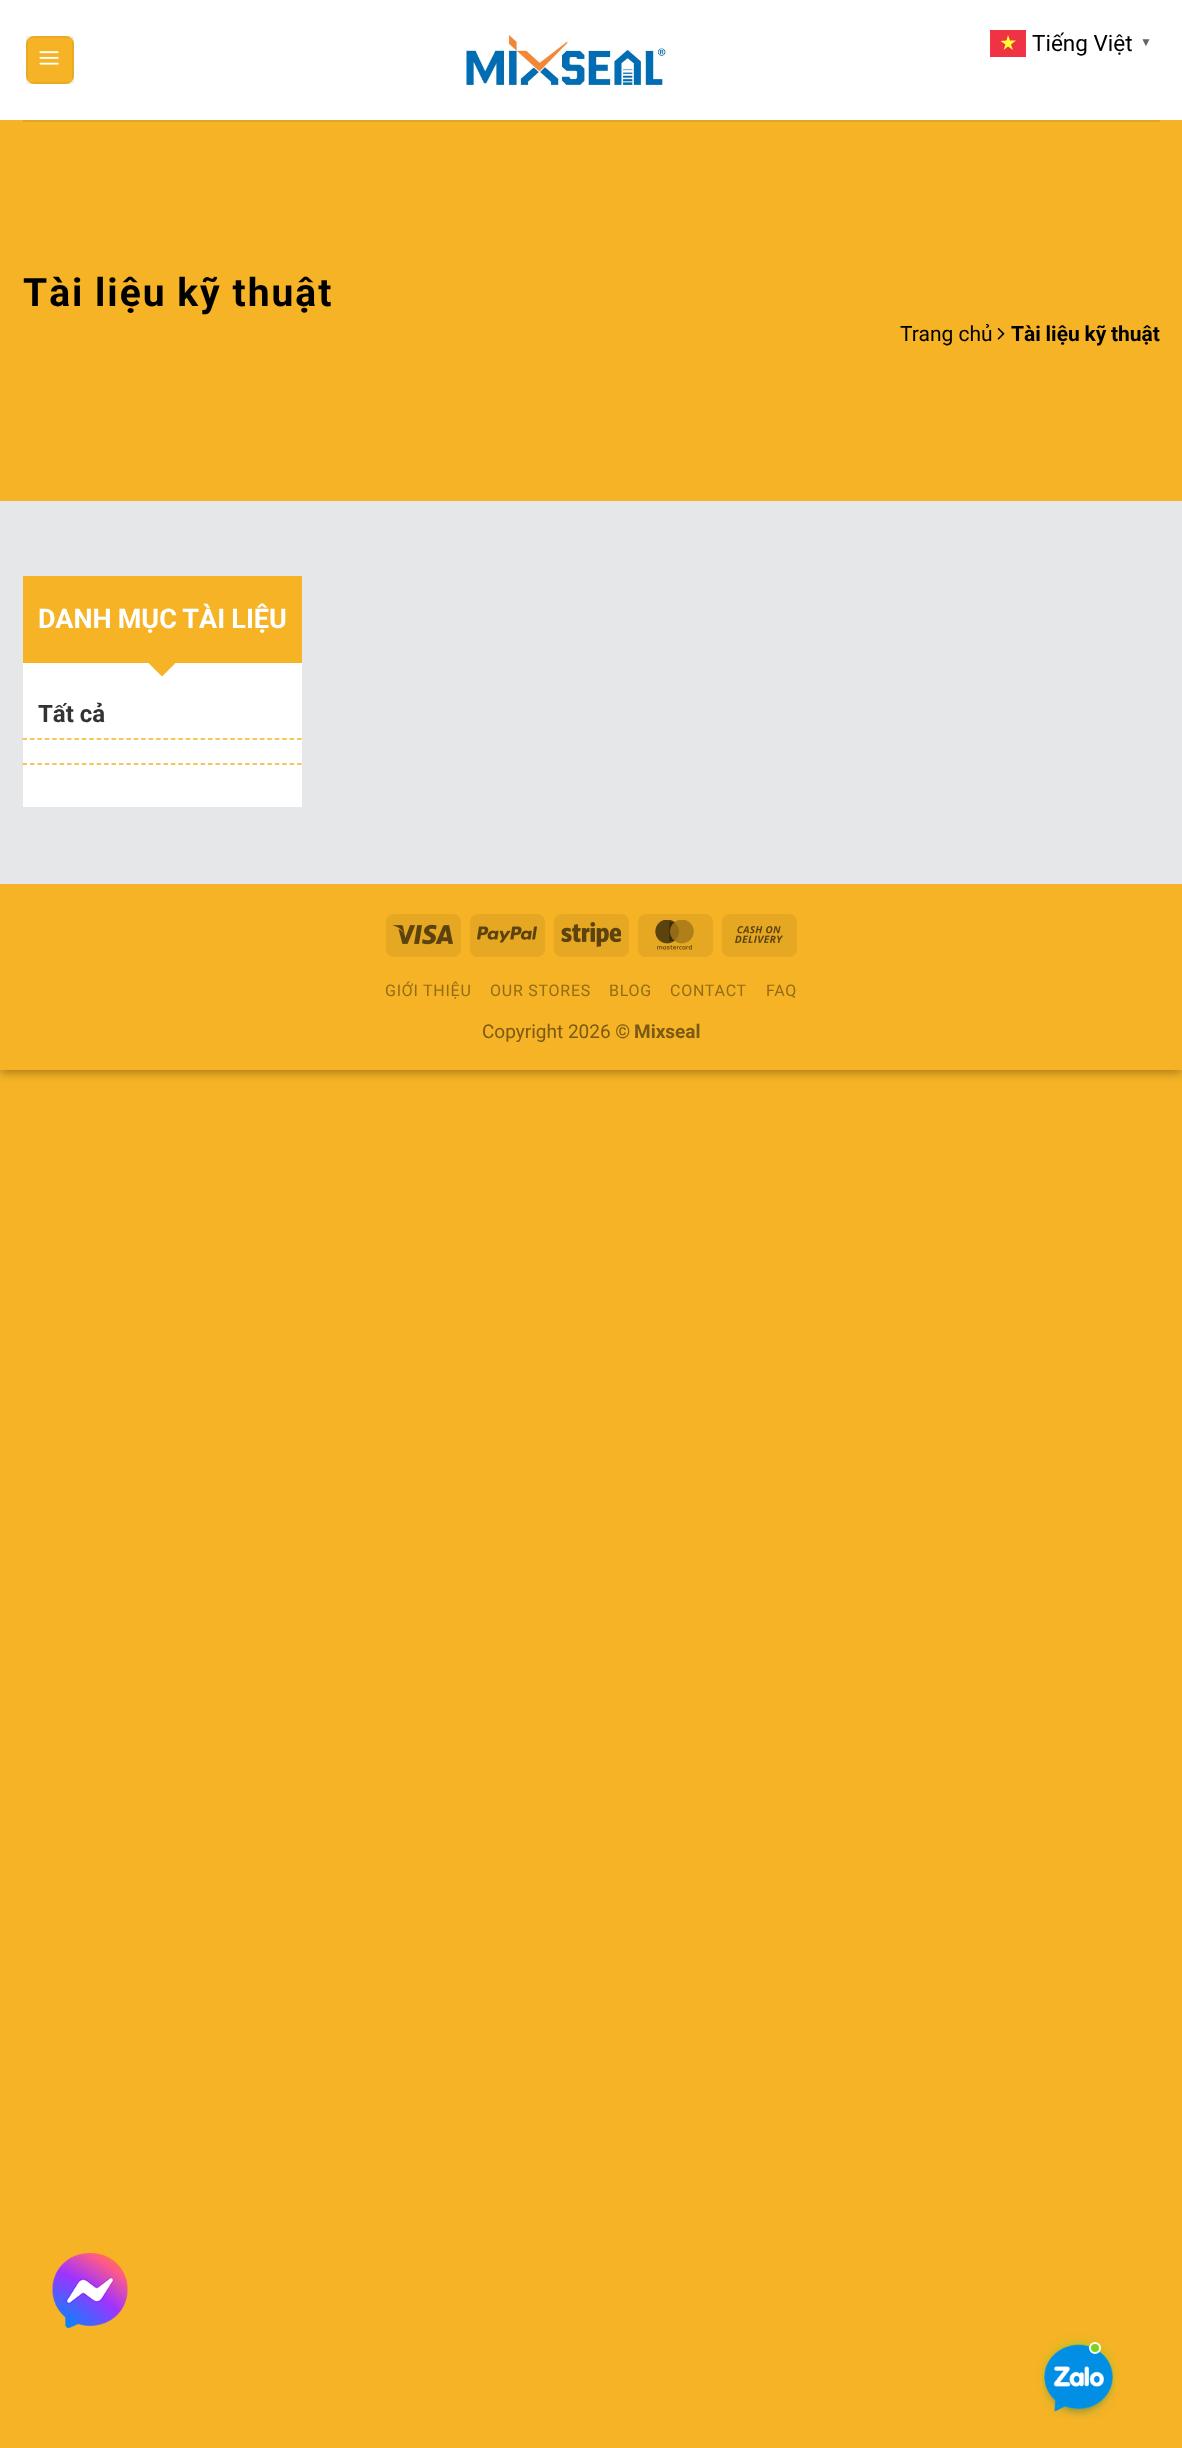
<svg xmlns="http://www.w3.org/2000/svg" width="1182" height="2448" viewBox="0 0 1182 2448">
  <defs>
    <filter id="blur1" x="-50%" y="-200%" width="200%" height="500%"><feGaussianBlur stdDeviation="4.5"/></filter>
    <filter id="blur2" x="-50%" y="-200%" width="200%" height="500%"><feGaussianBlur stdDeviation="6"/></filter>
  </defs>
  <rect width="100%" height="100%" fill="#f5b325"/>
  <rect x="0" y="5" width="1182" height="1069" fill="#000000" fill-opacity="0.23" filter="url(#blur1)"/>
  <rect x="6" y="11" width="1170" height="1057" fill="#000000" fill-opacity="0.16" filter="url(#blur1)"/>
  <rect x="0" y="0" width="1182" height="120" fill="#ffffff"/>
  <text x="1032" y="51" font-family="Roboto" font-size="22.5" fill="#000000">Tiếng Việt</text>
  <rect x="990" y="30" width="36" height="27" fill="#f03344"/>
  <path d="M1013 50L1008 46.5L1003.5 50L1005.5 44.5L1000.5 41L1006.5 40.5L1008 35L1010 40.5H1016L1011 44.5Z" fill="#ffff33" fill-rule="evenodd"/>
  <text x="1140" y="46" font-family="Liberation Sans" font-size="12" font-weight="bold" fill="#666666">▼</text>
  <rect x="26" y="36" width="48" height="48" rx="8" fill="#f5b325"/>
  <rect x="27" y="37" width="46" height="46" fill="none" stroke="#000000" stroke-opacity="0.05" stroke-width="2"/>
  <image x="39" y="51" width="20" height="14" href="img1.png"/>
  <image x="466" y="34" width="201" height="54" href="img2.png"/>
  <rect x="0" y="120" width="1182" height="381" fill="#f5b325"/>
  <rect x="23" y="120" width="1137" height="2" fill="#e2a626"/>
  <rect x="0" y="501" width="1182" height="383" fill="#e6e7e9"/>
  <text x="23" y="306" word-spacing="-1" font-family="Roboto" font-size="39" font-weight="bold" letter-spacing="2" fill="#000000">Tài liệu kỹ thuật</text>
  <text x="900" y="341" font-family="Roboto" font-size="21" fill="#000000">Trang chủ</text>
  <image x="997" y="328" width="8" height="12" href="img3.png"/>
  <text x="1011" y="341" word-spacing="-0.5" font-family="Roboto" font-size="21" font-weight="bold" fill="#000000">Tài liệu kỹ thuật</text>
  <rect x="23" y="663" width="279" height="144" fill="#ffffff"/>
  <rect x="23" y="576" width="279" height="87" fill="#f5b325"/>
  <text x="38" y="628" word-spacing="-0.5" font-family="Roboto" font-size="27" font-weight="bold" fill="#ffffff">DANH MỤC TÀI LIỆU</text>
  <path d="M147 661.5H177L162 676.5Z" fill="#f5b325"/>
  <path d="M22.5 739H301.5" fill="none" stroke="#f5b325" stroke-width="1.5" stroke-dasharray="4.5 2.92"/>
  <text x="38" y="722" font-family="Roboto" font-size="24" font-weight="bold" fill="#333333">Tất cả</text>
  <path d="M22.5 764H301.5" fill="none" stroke="#f5b325" stroke-width="1.5" stroke-dasharray="4.5 2.92"/>
  <rect x="0" y="884" width="1182" height="186" fill="#f5b325"/>
  <rect x="386" y="914" width="75" height="43" rx="8" fill="#e6a823"/>
  <image x="393" y="924" width="60" height="21" href="img4.png"/>
  <rect x="470" y="914" width="75" height="43" rx="8" fill="#e6a823"/>
  <image x="477" y="926" width="60" height="17" href="img5.png"/>
  <rect x="554" y="914" width="75" height="43" rx="8" fill="#e6a823"/>
  <image x="561" y="922" width="60" height="25" href="img6.png"/>
  <rect x="638" y="914" width="75" height="43" rx="8" fill="#e6a823"/>
  <image x="655" y="920" width="39" height="30" href="img7.png"/>
  <rect x="722" y="914" width="75" height="43" rx="8" fill="#e6a823"/>
  <image x="735" y="926" width="48" height="17" href="img8.png"/>
  <text x="385" y="996" font-family="Roboto" font-size="16" letter-spacing="0.75" fill="#936c16">GIỚI THIỆU</text>
  <text x="490" y="996" font-family="Roboto" font-size="16" letter-spacing="0.75" fill="#936c16">OUR STORES</text>
  <text x="609" y="996" font-family="Roboto" font-size="16" letter-spacing="0.75" fill="#936c16">BLOG</text>
  <text x="670" y="996" font-family="Roboto" font-size="16" letter-spacing="0.75" fill="#936c16">CONTACT</text>
  <text x="766" y="996" font-family="Roboto" font-size="16" letter-spacing="0.75" fill="#936c16">FAQ</text>
  <text x="482" y="1038" font-family="Roboto" font-size="19" fill="#7b5a13">Copyright 2026 ©</text>
  <text x="634" y="1038" font-family="Roboto" font-size="19" font-weight="bold" fill="#7b5a13">Mixseal</text>
  <image x="52" y="2253" width="76" height="75" href="img9.png"/>
  <rect x="1049" y="2346" width="60" height="60" rx="30" fill="#7ed321" filter="url(#blur2)"/>
  <image x="1042" y="2344" width="73" height="74" href="img10.png"/>
  <circle cx="1095" cy="2348" r="5" fill="#7ed321" stroke="#ffffff" stroke-width="2"/>
</svg>
